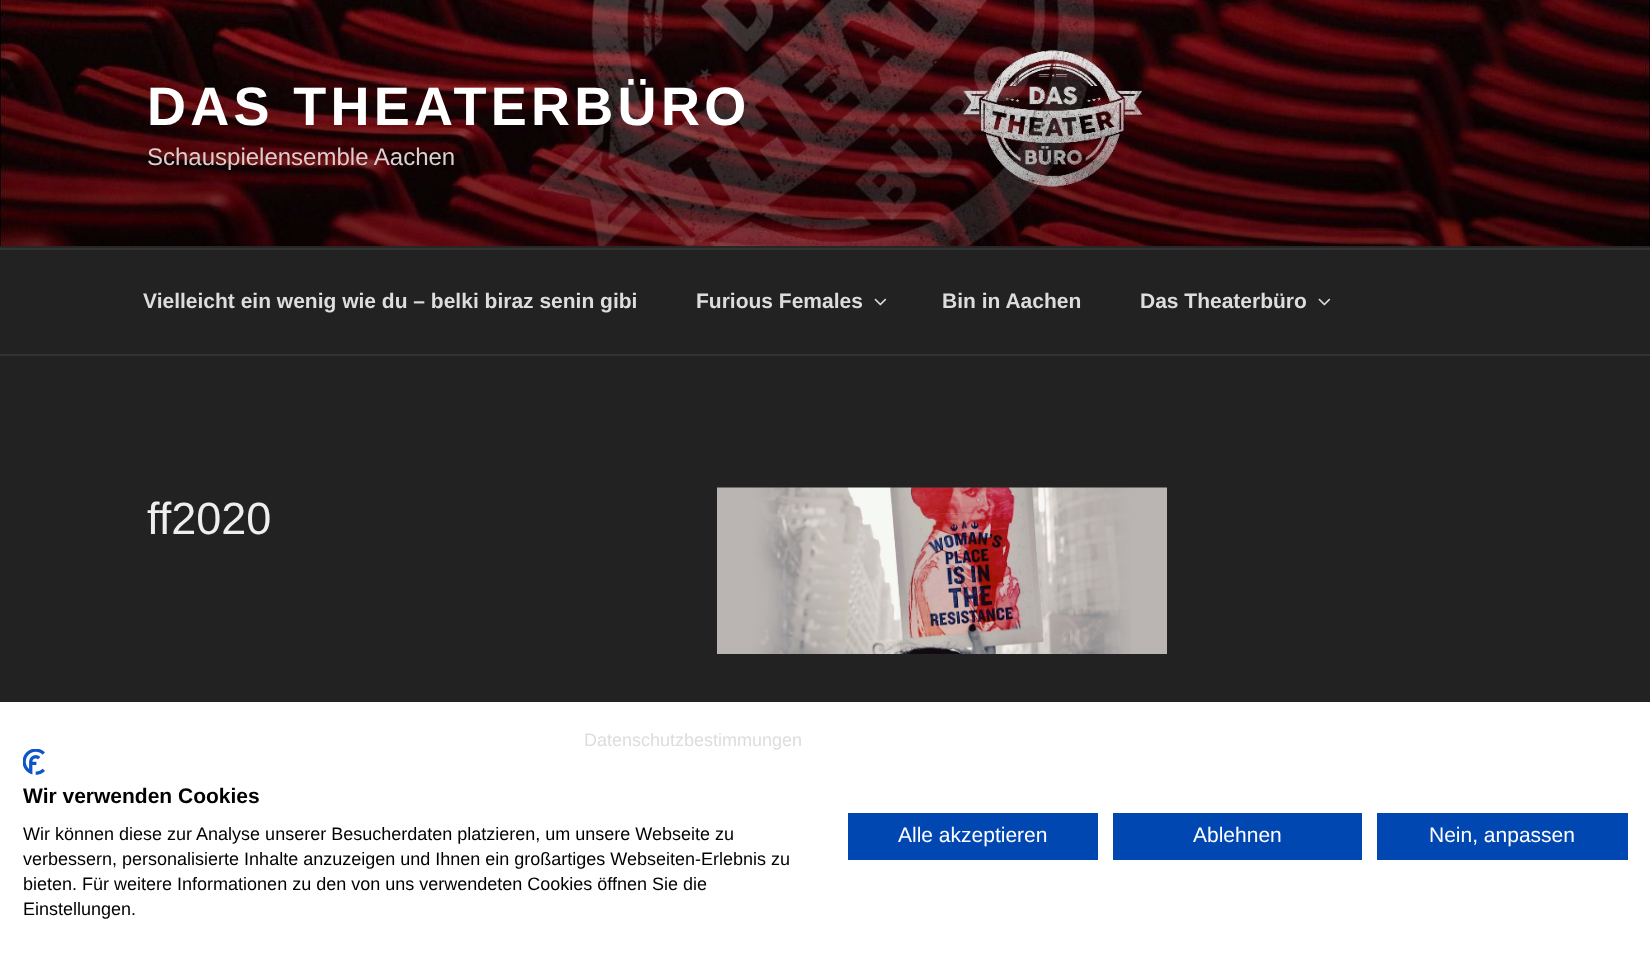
<svg xmlns="http://www.w3.org/2000/svg" width="1650" height="963" viewBox="0 0 1650 963">
  <rect width="100%" height="100%" fill="#222222"/>
  <rect x="0" y="246" width="1650" height="2" fill="#262626"/>
  <image x="0" y="0" width="1650" height="246" href="img1.png"/>
  <text x="147" y="125" font-family="Liberation Sans" font-size="54" font-weight="bold" letter-spacing="4.3" fill="#ffffff">DAS THEATERBÜRO</text>
  <text x="147" y="165" font-family="Liberation Sans" font-size="24" fill="#dacece">Schauspielensemble Aachen</text>
  <rect x="0" y="248" width="1650" height="2" fill="#333333"/>
  <rect x="0" y="354" width="1650" height="2" fill="#333333"/>
  <text x="143" y="308" font-family="Liberation Sans" font-size="21" font-weight="bold" fill="#dddddd">Vielleicht ein wenig wie du – belki biraz senin gibi</text>
  <text x="696" y="308" font-family="Liberation Sans" font-size="21" font-weight="bold" fill="#dddddd">Furious Females</text>
  <image x="874" y="298" width="13" height="8" href="img2.png"/>
  <text x="942" y="308" font-family="Liberation Sans" font-size="21" font-weight="bold" fill="#dddddd">Bin in Aachen</text>
  <text x="1140" y="308" font-family="Liberation Sans" font-size="21" font-weight="bold" fill="#dddddd">Das Theaterbüro</text>
  <image x="1318" y="298" width="13" height="8" href="img2.png"/>
  <text x="147" y="534" font-family="Liberation Sans" font-size="45" fill="#eeeeee">ff2020</text>
  <image x="717" y="487" width="450" height="167" href="img3.png"/>
  <rect x="0" y="702" width="1650" height="261" fill="#ffffff"/>
  <text x="584" y="746" font-family="Liberation Sans" font-size="18" fill="#dddddd">Datenschutzbestimmungen</text>
  <image x="23" y="749" width="22" height="26" href="img4.png"/>
  <text x="23" y="803" font-family="Liberation Sans" font-size="21" font-weight="bold" fill="#000000">Wir verwenden Cookies</text>
  <text x="23" y="840" font-family="Liberation Sans" font-size="18" fill="#000000">Wir können diese zur Analyse unserer Besucherdaten platzieren, um unsere Webseite zu</text>
  <text x="23" y="865" font-family="Liberation Sans" font-size="18" fill="#000000">verbessern, personalisierte Inhalte anzuzeigen und Ihnen ein großartiges Webseiten-Erlebnis zu</text>
  <text x="23" y="890" font-family="Liberation Sans" font-size="18" fill="#000000">bieten. Für weitere Informationen zu den von uns verwendeten Cookies öffnen Sie die</text>
  <text x="23" y="915" font-family="Liberation Sans" font-size="18" fill="#000000">Einstellungen.</text>
  <rect x="848" y="813" width="250" height="47" fill="#0047b2"/>
  <text x="898" y="842" font-family="Liberation Sans" font-size="21" fill="#ffffff">Alle akzeptieren</text>
  <rect x="1113" y="813" width="249" height="47" fill="#0047b2"/>
  <text x="1193" y="842" font-family="Liberation Sans" font-size="21" fill="#ffffff">Ablehnen</text>
  <rect x="1377" y="813" width="251" height="47" fill="#0047b2"/>
  <text x="1429" y="842" font-family="Liberation Sans" font-size="21" fill="#ffffff">Nein, anpassen</text>
</svg>
